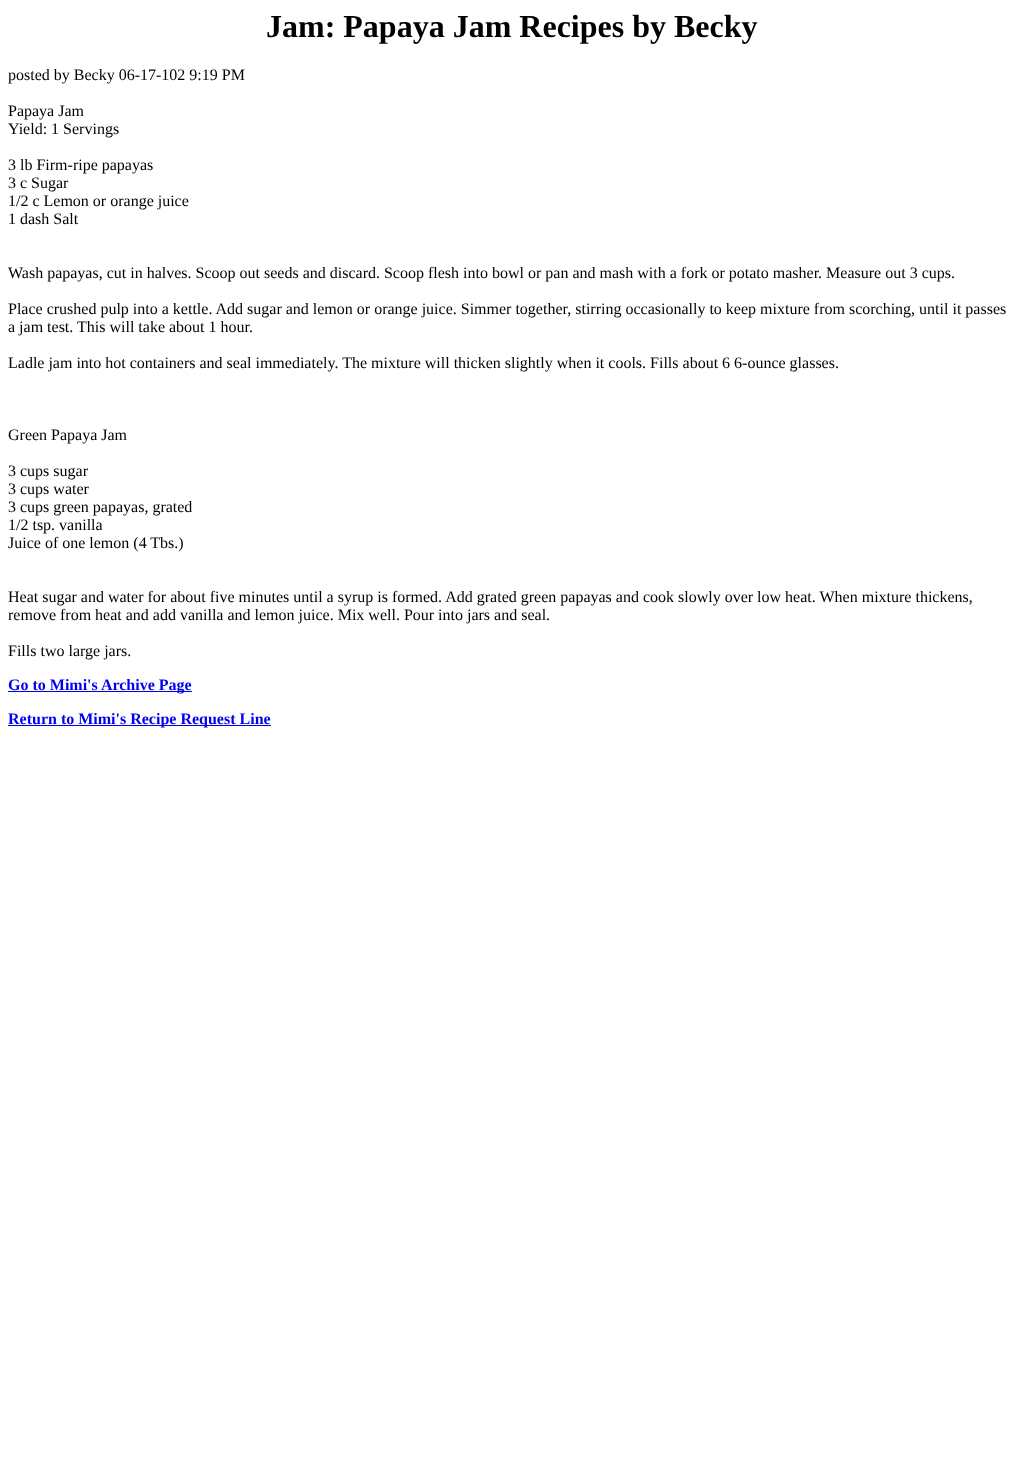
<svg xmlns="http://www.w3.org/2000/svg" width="1023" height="1472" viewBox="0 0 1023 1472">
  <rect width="100%" height="100%" fill="#ffffff"/>
  <text x="266" y="37" font-family="Liberation Serif" font-size="32" font-weight="bold" fill="#000000">Jam: Papaya Jam Recipes by Becky</text>
  <text x="8" y="80" font-family="Liberation Serif" font-size="16" fill="#000000">posted by Becky 06-17-102 9:19 PM</text>
  <text x="8" y="116" font-family="Liberation Serif" font-size="16" fill="#000000">Papaya Jam</text>
  <text x="8" y="134" font-family="Liberation Serif" font-size="16" fill="#000000">Yield: 1 Servings</text>
  <text x="8" y="170" font-family="Liberation Serif" font-size="16" fill="#000000">3 lb Firm-ripe papayas</text>
  <text x="8" y="188" font-family="Liberation Serif" font-size="16" fill="#000000">3 c Sugar</text>
  <text x="8" y="206" font-family="Liberation Serif" font-size="16" fill="#000000">1/2 c Lemon or orange juice</text>
  <text x="8" y="224" font-family="Liberation Serif" font-size="16" fill="#000000">1 dash Salt</text>
  <text x="8" y="278" font-family="Liberation Serif" font-size="16" fill="#000000">Wash papayas, cut in halves. Scoop out seeds and discard. Scoop flesh into bowl or pan and mash with a fork or potato masher. Measure out 3 cups.</text>
  <text x="8" y="314" font-family="Liberation Serif" font-size="16" fill="#000000">Place crushed pulp into a kettle. Add sugar and lemon or orange juice. Simmer together, stirring occasionally to keep mixture from scorching, until it passes</text>
  <text x="8" y="332" font-family="Liberation Serif" font-size="16" fill="#000000">a jam test. This will take about 1 hour.</text>
  <text x="8" y="368" font-family="Liberation Serif" font-size="16" fill="#000000">Ladle jam into hot containers and seal immediately. The mixture will thicken slightly when it cools. Fills about 6 6-ounce glasses.</text>
  <text x="8" y="440" font-family="Liberation Serif" font-size="16" fill="#000000">Green Papaya Jam</text>
  <text x="8" y="476" font-family="Liberation Serif" font-size="16" fill="#000000">3 cups sugar</text>
  <text x="8" y="494" font-family="Liberation Serif" font-size="16" fill="#000000">3 cups water</text>
  <text x="8" y="512" font-family="Liberation Serif" font-size="16" fill="#000000">3 cups green papayas, grated</text>
  <text x="8" y="530" font-family="Liberation Serif" font-size="16" fill="#000000">1/2 tsp. vanilla</text>
  <text x="8" y="548" font-family="Liberation Serif" font-size="16" fill="#000000">Juice of one lemon (4 Tbs.)</text>
  <text x="8" y="602" font-family="Liberation Serif" font-size="16" fill="#000000">Heat sugar and water for about five minutes until a syrup is formed. Add grated green papayas and cook slowly over low heat. When mixture thickens,</text>
  <text x="8" y="620" font-family="Liberation Serif" font-size="16" fill="#000000">remove from heat and add vanilla and lemon juice. Mix well. Pour into jars and seal.</text>
  <text x="8" y="656" font-family="Liberation Serif" font-size="16" fill="#000000">Fills two large jars.</text>
  <rect x="8" y="691" width="184" height="1" fill="#0000ee"/>
  <text x="8" y="690" font-family="Liberation Serif" font-size="16" font-weight="bold" fill="#0000ee">Go to Mimi's Archive Page</text>
  <rect x="8" y="725" width="263" height="1" fill="#0000ee"/>
  <text x="8" y="724" font-family="Liberation Serif" font-size="16" font-weight="bold" fill="#0000ee">Return to Mimi's Recipe Request Line</text>
</svg>
